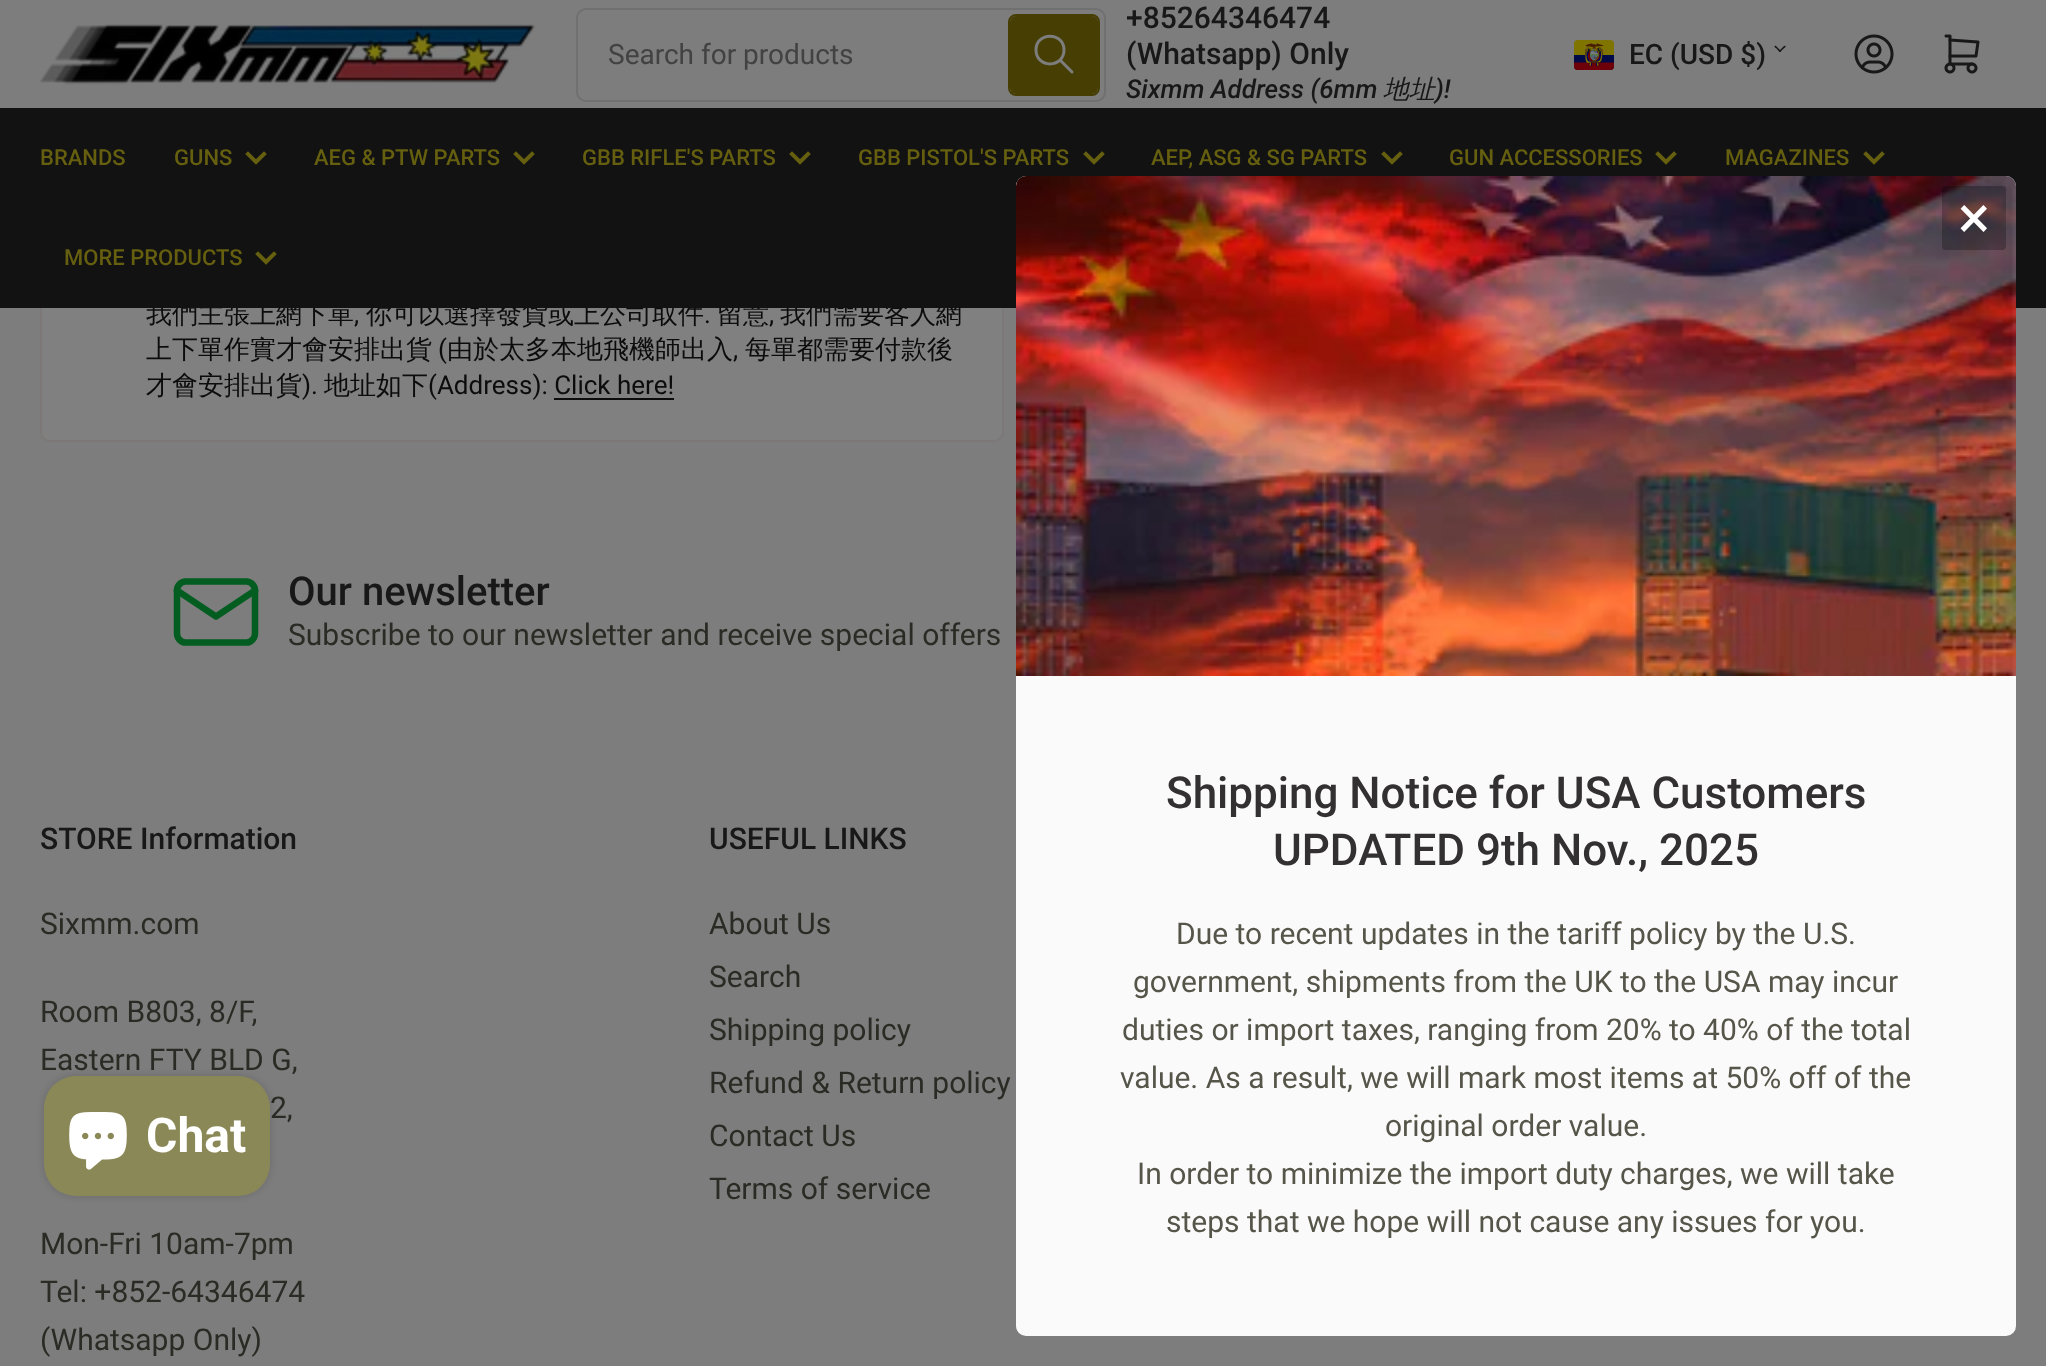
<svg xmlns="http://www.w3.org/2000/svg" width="2046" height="1366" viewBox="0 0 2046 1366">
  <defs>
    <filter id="blur1" x="-50%" y="-200%" width="200%" height="500%"><feGaussianBlur stdDeviation="5"/></filter>
  </defs>
  <rect width="100%" height="100%" fill="#7d7d7d"/>
  <image x="40" y="24" width="495" height="61" href="img1.png"/>
  <rect x="577" y="9" width="528" height="92" rx="9" fill="none" stroke="#707070" stroke-width="2"/>
  <text x="608" y="64" font-family="Roboto" font-size="28" fill="#424242">Search for products</text>
  <rect x="1009" y="15" width="90" height="80" rx="7" fill="none" stroke="#473e03" stroke-width="2"/>
  <rect x="1010" y="16" width="88" height="78" rx="6" fill="#473e03"/>
  <path d="M1036 50C1036 68.5 1064 68.5 1064 50C1064 31.5 1036 31.5 1036 50M1072 72L1060 60" fill="none" stroke="#7d7d7d" stroke-width="3" stroke-linecap="round" stroke-linejoin="round"/>
  <text x="1126" y="28" font-family="Roboto" font-size="30" font-weight="500" fill="#191818">+85264346474</text>
  <text x="1126" y="64" font-family="Roboto" font-size="30" font-weight="500" fill="#191818">(Whatsapp) Only</text>
  <text x="1126" y="98" font-family="Roboto" font-size="26" font-weight="500" font-style="italic" fill="#191818">Sixmm Address (6mm</text>
  <text x="1383" y="98" font-family="WenQuanYi Zen Hei" font-size="26" font-weight="500" font-style="italic" fill="#191818">地址</text>
  <text x="1435" y="98" font-family="Roboto" font-size="26" font-weight="500" font-style="italic" fill="#191818">)!</text>
  <image x="1574" y="40" width="40" height="30" href="img2.png"/>
  <text x="1629" y="64" font-family="Roboto" font-size="28" font-weight="500" fill="#191818">EC (USD $)</text>
  <path d="M1776 46L1779.5 49.5C1781 51 1781 52.5 1779.5 52L1776.5 48.5C1776 48 1774.5 47.5 1774.5 46.5C1774.5 46 1775.5 45.5 1776 46Z" fill="#191818"/>
  <path d="M1779.5 50.5L1783.5 46.5C1784.5 45.5 1786 45.5 1785.5 47L1782 50C1781.5 50.5 1781 52 1780 52C1779.5 51.5 1779 51 1779.5 50.5Z" fill="#191818"/>
  <image x="1854" y="34" width="40" height="40" href="img3.png"/>
  <image x="1944" y="34" width="36" height="40" href="img4.png"/>
  <rect x="41" y="213" width="962" height="228" rx="9" fill="#808080" stroke="#7d7878" stroke-width="2"/>
  <text x="146" y="323" font-family="WenQuanYi Zen Hei" font-size="26" font-weight="500" fill="#0d0c0c">我們主張上網下單</text>
  <text x="366" y="323" font-family="WenQuanYi Zen Hei" font-size="26" font-weight="500" fill="#0d0c0c">你可以選擇發貨或上公司取件</text>
  <text x="717" y="323" font-family="WenQuanYi Zen Hei" font-size="26" font-weight="500" fill="#0d0c0c">留意</text>
  <text x="780" y="323" font-family="WenQuanYi Zen Hei" font-size="26" font-weight="500" fill="#0d0c0c">我們需要客人網</text>
  <rect x="0" y="108" width="2046" height="200" fill="#121212"/>
  <text x="40" y="165" font-family="Roboto" font-size="22" font-weight="500" fill="#655f0f">BRANDS</text>
  <text x="174" y="165" font-family="Roboto" font-size="22" font-weight="500" fill="#655f0f">GUNS</text>
  <path d="M264 154L256 162L248 154" fill="none" stroke="#655f0f" stroke-width="4" stroke-linecap="square"/>
  <text x="314" y="165" font-family="Roboto" font-size="22" font-weight="500" fill="#655f0f">AEG &amp; PTW PARTS</text>
  <path d="M532 154L524 162L516 154" fill="none" stroke="#655f0f" stroke-width="4" stroke-linecap="square"/>
  <text x="582" y="165" font-family="Roboto" font-size="22" font-weight="500" fill="#655f0f">GBB RIFLE'S PARTS</text>
  <path d="M808 154L800 162L792 154" fill="none" stroke="#655f0f" stroke-width="4" stroke-linecap="square"/>
  <text x="858" y="165" font-family="Roboto" font-size="22" font-weight="500" fill="#655f0f">GBB PISTOL'S PARTS</text>
  <path d="M1102 154L1094 162L1086 154" fill="none" stroke="#655f0f" stroke-width="4" stroke-linecap="square"/>
  <text x="1151" y="165" font-family="Roboto" font-size="22" font-weight="500" fill="#655f0f">AEP, ASG &amp; SG PARTS</text>
  <path d="M1400 154L1392 162L1384 154" fill="none" stroke="#655f0f" stroke-width="4" stroke-linecap="square"/>
  <text x="1449" y="165" font-family="Roboto" font-size="22" font-weight="500" fill="#655f0f">GUN ACCESSORIES</text>
  <path d="M1674 154L1666 162L1658 154" fill="none" stroke="#655f0f" stroke-width="4" stroke-linecap="square"/>
  <text x="1725" y="165" font-family="Roboto" font-size="22" font-weight="500" fill="#655f0f">MAGAZINES</text>
  <path d="M1882 154L1874 162L1866 154" fill="none" stroke="#655f0f" stroke-width="4" stroke-linecap="square"/>
  <text x="64" y="265" font-family="Roboto" font-size="22" font-weight="500" fill="#655f0f">MORE PRODUCTS</text>
  <path d="M274 254L266 262L258 254" fill="none" stroke="#655f0f" stroke-width="4" stroke-linecap="square"/>
  <text x="354" y="323" font-family="Roboto" font-size="26" fill="#0d0c0c">,</text>
  <text x="704" y="323" font-family="Roboto" font-size="26" fill="#0d0c0c">.</text>
  <text x="769" y="323" font-family="Roboto" font-size="26" fill="#0d0c0c">,</text>
  <text x="146" y="358" font-family="WenQuanYi Zen Hei" font-size="26" font-weight="500" fill="#0d0c0c">上下單作實才會安排出貨</text>
  <text x="438" y="358" font-family="Roboto" font-size="26" fill="#0d0c0c">(</text>
  <text x="447" y="358" font-family="WenQuanYi Zen Hei" font-size="26" font-weight="500" fill="#0d0c0c">由於太多本地飛機師出入</text>
  <text x="733" y="358" font-family="Roboto" font-size="26" fill="#0d0c0c">,</text>
  <text x="745" y="358" font-family="WenQuanYi Zen Hei" font-size="26" font-weight="500" fill="#0d0c0c">每單都需要付款後</text>
  <text x="146" y="394" font-family="WenQuanYi Zen Hei" font-size="26" font-weight="500" fill="#0d0c0c">才會安排出貨</text>
  <text x="302" y="394" font-family="Roboto" font-size="26" fill="#0d0c0c">).</text>
  <text x="324" y="394" font-family="WenQuanYi Zen Hei" font-size="26" font-weight="500" fill="#0d0c0c">地址如下</text>
  <text x="428" y="394" font-family="Roboto" font-size="26" fill="#0d0c0c">(Address): Click here!</text>
  <rect x="554" y="398" width="120" height="2" fill="#0d0c0c"/>
  <path d="M177 590.5C177 585.5 181 581.5 185.5 581.5H246.5C251 581.5 255 585.5 255 590.5V633.5C255 638.5 251 642.5 246.5 642.5H185.5C181 642.5 177 638.5 177 633.5Z" fill="none" stroke="#035d20" stroke-width="6.5" stroke-linecap="round" stroke-linejoin="round"/>
  <path d="M177 590.5L216 616.5L255 590.5" fill="none" stroke="#035d20" stroke-width="6.5" stroke-linecap="round" stroke-linejoin="round"/>
  <text x="288" y="605" font-family="Roboto" font-size="40" font-weight="500" fill="#191818">Our newsletter</text>
  <text x="288" y="645" font-family="Roboto" font-size="30" fill="#2b2b25">Subscribe to our newsletter and receive special offers</text>
  <text x="40" y="849" font-family="Roboto" font-size="30" font-weight="500" fill="#191818">STORE Information</text>
  <text x="40" y="934" font-family="Roboto" font-size="30" fill="#2b2b25">Sixmm.com</text>
  <text x="40" y="1022" font-family="Roboto" font-size="30" fill="#2b2b25">Room B803, 8/F,</text>
  <text x="40" y="1070" font-family="Roboto" font-size="30" fill="#2b2b25">Eastern FTY BLD G,</text>
  <text x="270" y="1118" font-family="Roboto" font-size="30" fill="#2b2b25">2,</text>
  <text x="40" y="1254" font-family="Roboto" font-size="30" fill="#2b2b25">Mon-Fri 10am-7pm</text>
  <text x="40" y="1302" font-family="Roboto" font-size="30" fill="#2b2b25">Tel: +852-64346474</text>
  <text x="40" y="1350" font-family="Roboto" font-size="30" fill="#2b2b25">(Whatsapp Only)</text>
  <text x="709" y="849" font-family="Roboto" font-size="30" font-weight="500" fill="#191818">USEFUL LINKS</text>
  <text x="709" y="934" font-family="Roboto" font-size="30" fill="#2b2b25">About Us</text>
  <text x="709" y="987" font-family="Roboto" font-size="30" fill="#2b2b25">Search</text>
  <text x="709" y="1040" font-family="Roboto" font-size="30" fill="#2b2b25">Shipping policy</text>
  <text x="709" y="1093" font-family="Roboto" font-size="30" fill="#2b2b25">Refund &amp; Return policy</text>
  <text x="709" y="1146" font-family="Roboto" font-size="30" fill="#2b2b25">Contact Us</text>
  <text x="709" y="1199" font-family="Roboto" font-size="30" fill="#2b2b25">Terms of service</text>
  <rect x="1016" y="176" width="1000" height="1160" rx="10" fill="#fafafa"/>
  <image x="1016" y="176" width="1000" height="500" href="img5.png"/>
  <rect x="1942" y="186" width="64" height="64" rx="4" fill="#000000" fill-opacity="0.25"/>
  <text x="1958" y="238" font-family="Roboto" font-size="60" fill="#ffffff">×</text>
  <text x="1166" y="808" font-family="Roboto" font-size="44" font-weight="500" fill="#323030">Shipping Notice for USA Customers</text>
  <text x="1273" y="865" font-family="Roboto" font-size="44" font-weight="500" fill="#323030">UPDATED 9th Nov., 2025</text>
  <text x="1176" y="944" font-family="Roboto" font-size="30" fill="#565549">Due to recent updates in the tariff policy by the U.S.</text>
  <text x="1133" y="992" font-family="Roboto" font-size="30" fill="#565549">government, shipments from the UK to the USA may incur</text>
  <text x="1122" y="1040" font-family="Roboto" font-size="30" fill="#565549">duties or import taxes, ranging from 20% to 40% of the total</text>
  <text x="1120" y="1088" font-family="Roboto" font-size="30" fill="#565549">value. As a result, we will mark most items at 50% off of the</text>
  <text x="1385" y="1136" font-family="Roboto" font-size="30" fill="#565549">original order value.</text>
  <text x="1137" y="1184" font-family="Roboto" font-size="30" fill="#565549">In order to minimize the import duty charges, we will take</text>
  <text x="1166" y="1232" font-family="Roboto" font-size="30" fill="#565549">steps that we hope will not cause any issues for you.</text>
  <rect x="44" y="1076" width="226" height="120" rx="32" fill="#000000" fill-opacity="0.15" filter="url(#blur1)"/>
  <rect x="44" y="1076" width="226" height="120" rx="32" fill="#8b8858"/>
  <image x="69" y="1112" width="58" height="58" href="img6.png"/>
  <text x="146" y="1152" font-family="Roboto" font-size="48" font-weight="bold" fill="#ffffff">Chat</text>
</svg>
